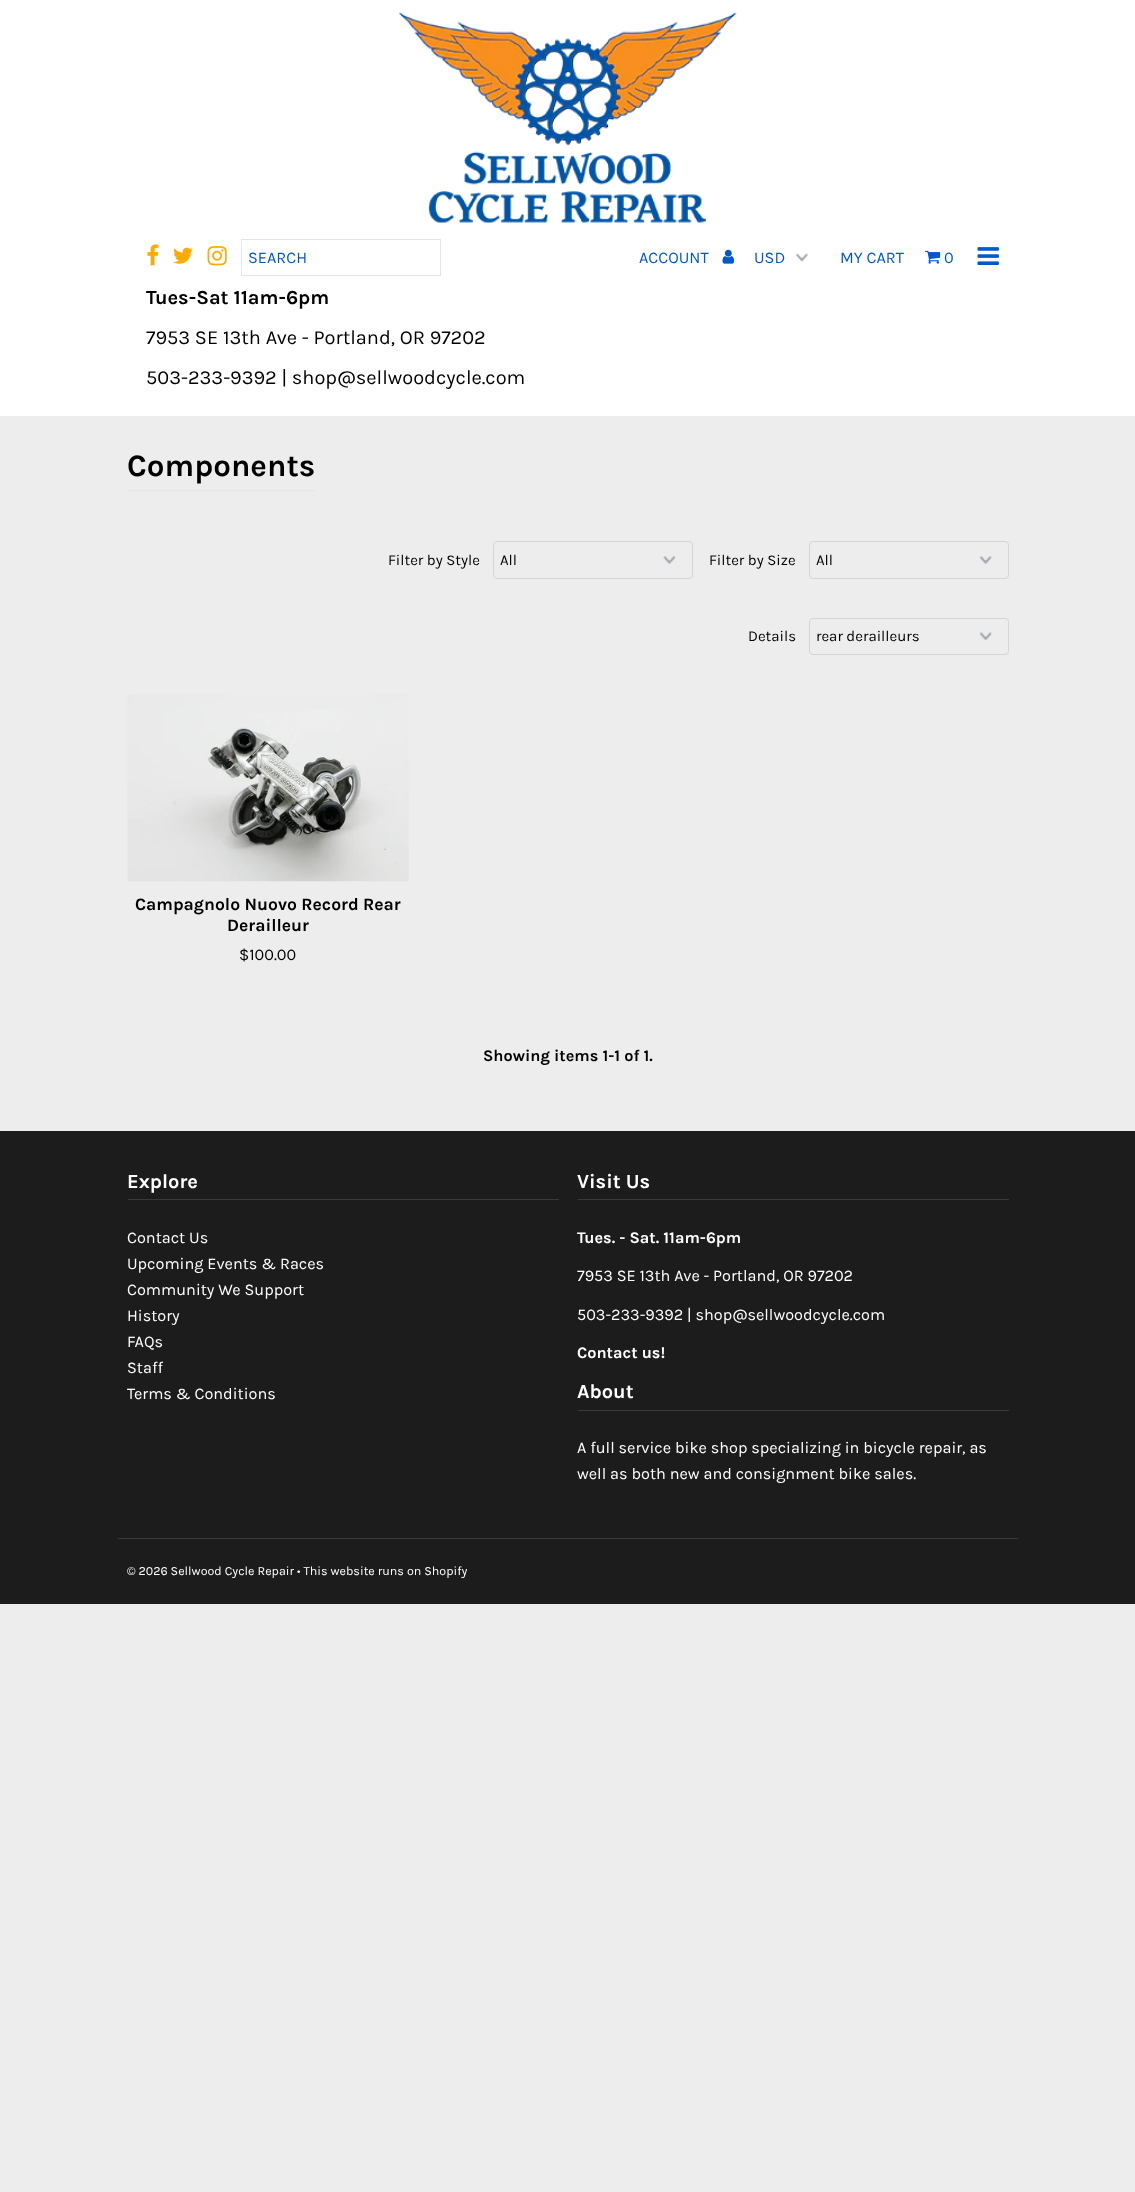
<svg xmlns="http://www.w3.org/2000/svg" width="1135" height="2192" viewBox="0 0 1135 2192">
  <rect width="100%" height="100%" fill="#ededed"/>
  <rect x="0" y="0" width="1135" height="416" fill="#ffffff"/>
  <image x="399" y="12" width="338" height="211" href="img1.png"/>
  <image x="147" y="244" width="12" height="22" href="img2.png"/>
  <image x="173" y="247" width="20" height="17" href="img3.png"/>
  <image x="207" y="246" width="20" height="20" href="img4.png"/>
  <rect x="241.5" y="239.5" width="199" height="36" fill="none" stroke="#e5e5e5"/>
  <text x="248" y="263" font-family="Karla" font-size="16.25" fill="#0058cd">SEARCH</text>
  <text x="146" y="304" font-family="Karla" font-size="20" font-weight="bold" fill="#000000">Tues-Sat 11am-6pm</text>
  <text x="146" y="344" font-family="Karla" font-size="20" fill="#000000">7953 SE 13th Ave - Portland, OR 97202</text>
  <text x="146" y="384" font-family="Karla" font-size="20" fill="#000000">503-233-9392 | shop@sellwoodcycle.com</text>
  <text x="639" y="263" font-family="Karla" font-size="16.25" fill="#0058cd">ACCOUNT</text>
  <image x="722" y="249" width="13" height="15" href="img5.png"/>
  <image x="796" y="253" width="12" height="9" href="img6.png"/>
  <text x="754" y="263" font-family="Karla" font-size="16.25" fill="#0058cd">USD</text>
  <text x="840" y="263" font-family="Karla" font-size="16.25" fill="#0058cd">MY CART</text>
  <image x="925" y="250" width="16" height="14" href="img7.png"/>
  <text x="944" y="263" font-family="Karla" font-size="16.25" fill="#0058cd">0</text>
  <image x="977" y="247" width="22" height="18" href="img8.png"/>
  <rect x="128" y="490" width="187" height="1" fill="#e5e5e5"/>
  <text x="127" y="476" font-family="Karla" font-size="31.25" font-weight="bold" fill="#000000">Components</text>
  <text x="388" y="565" font-family="Karla" font-size="15" fill="#000000">Filter by Style</text>
  <image x="663" y="556" width="13" height="8" href="img9.png"/>
  <rect x="493.5" y="541.5" width="199" height="37" rx="3.5" fill="none" stroke="#d5d5d5"/>
  <text x="500" y="565" font-family="Karla" font-size="15" fill="#000000">All</text>
  <text x="709" y="565" font-family="Karla" font-size="15" fill="#000000">Filter by Size</text>
  <image x="979" y="556" width="13" height="8" href="img10.png"/>
  <rect x="809.5" y="541.5" width="199" height="37" rx="3.5" fill="none" stroke="#d5d5d5"/>
  <text x="816" y="565" font-family="Karla" font-size="15" fill="#000000">All</text>
  <text x="748" y="641" font-family="Karla" font-size="15" fill="#000000">Details</text>
  <image x="979" y="632" width="13" height="9" href="img11.png"/>
  <rect x="809.5" y="618.5" width="199" height="36" rx="3.5" fill="none" stroke="#d5d5d5"/>
  <text x="816" y="641" font-family="Karla" font-size="15" fill="#000000">rear derailleurs</text>
  <image x="127" y="694" width="282" height="188" href="img12.png"/>
  <text x="135" y="910" font-family="Karla" font-size="17.5" font-weight="bold" fill="#000000">Campagnolo Nuovo Record Rear</text>
  <text x="227" y="931" font-family="Karla" font-size="17.5" font-weight="bold" fill="#000000">Derailleur</text>
  <text x="239" y="960" font-family="Karla" font-size="16.25" fill="#000000">$100.00</text>
  <text x="483" y="1061" font-family="Karla" font-size="16.25" font-weight="bold" fill="#000000">Showing items 1-1 of 1.</text>
  <rect x="0" y="1131" width="1135" height="473" fill="#1c1c1c"/>
  <rect x="128" y="1199" width="431" height="1" fill="#393939"/>
  <text x="127" y="1188" font-family="Karla" font-size="20" font-weight="bold" fill="#ffffff">Explore</text>
  <text x="127" y="1243" font-family="Karla" font-size="16.25" fill="#ffffff">Contact Us</text>
  <text x="127" y="1269" font-family="Karla" font-size="16.25" fill="#ffffff">Upcoming Events &amp; Races</text>
  <text x="127" y="1295" font-family="Karla" font-size="16.25" fill="#ffffff">Community We Support</text>
  <text x="127" y="1321" font-family="Karla" font-size="16.25" fill="#ffffff">History</text>
  <text x="127" y="1347" font-family="Karla" font-size="16.25" fill="#ffffff">FAQs</text>
  <text x="127" y="1373" font-family="Karla" font-size="16.25" fill="#ffffff">Staff</text>
  <text x="127" y="1399" font-family="Karla" font-size="16.25" fill="#ffffff">Terms &amp; Conditions</text>
  <rect x="578" y="1199" width="431" height="1" fill="#393939"/>
  <text x="577" y="1188" font-family="Karla" font-size="20" font-weight="bold" fill="#ffffff">Visit Us</text>
  <text x="577" y="1243" font-family="Karla" font-size="16.25" font-weight="bold" fill="#ffffff">Tues. - Sat. 11am-6pm</text>
  <text x="577" y="1281" font-family="Karla" font-size="16.25" fill="#ffffff">7953 SE 13th Ave - Portland, OR 97202</text>
  <text x="577" y="1320" font-family="Karla" font-size="16.25" fill="#ffffff">503-233-9392 | shop@sellwoodcycle.com</text>
  <text x="577" y="1358" font-family="Karla" font-size="16.25" font-weight="bold" fill="#ffffff">Contact us!</text>
  <rect x="578" y="1410" width="431" height="1" fill="#393939"/>
  <text x="577" y="1398" font-family="Karla" font-size="20" font-weight="bold" fill="#ffffff">About</text>
  <text x="577" y="1453" font-family="Karla" font-size="16.25" fill="#ffffff">A full service bike shop specializing in bicycle repair, as</text>
  <text x="577" y="1479" font-family="Karla" font-size="16.25" fill="#ffffff">well as both new and consignment bike sales.</text>
  <rect x="118" y="1538" width="900" height="1" fill="#393939"/>
  <text x="127" y="1575" font-family="Karla" font-size="12.5" fill="#ffffff">© 2026 Sellwood Cycle Repair • This website runs on Shopify</text>
</svg>
